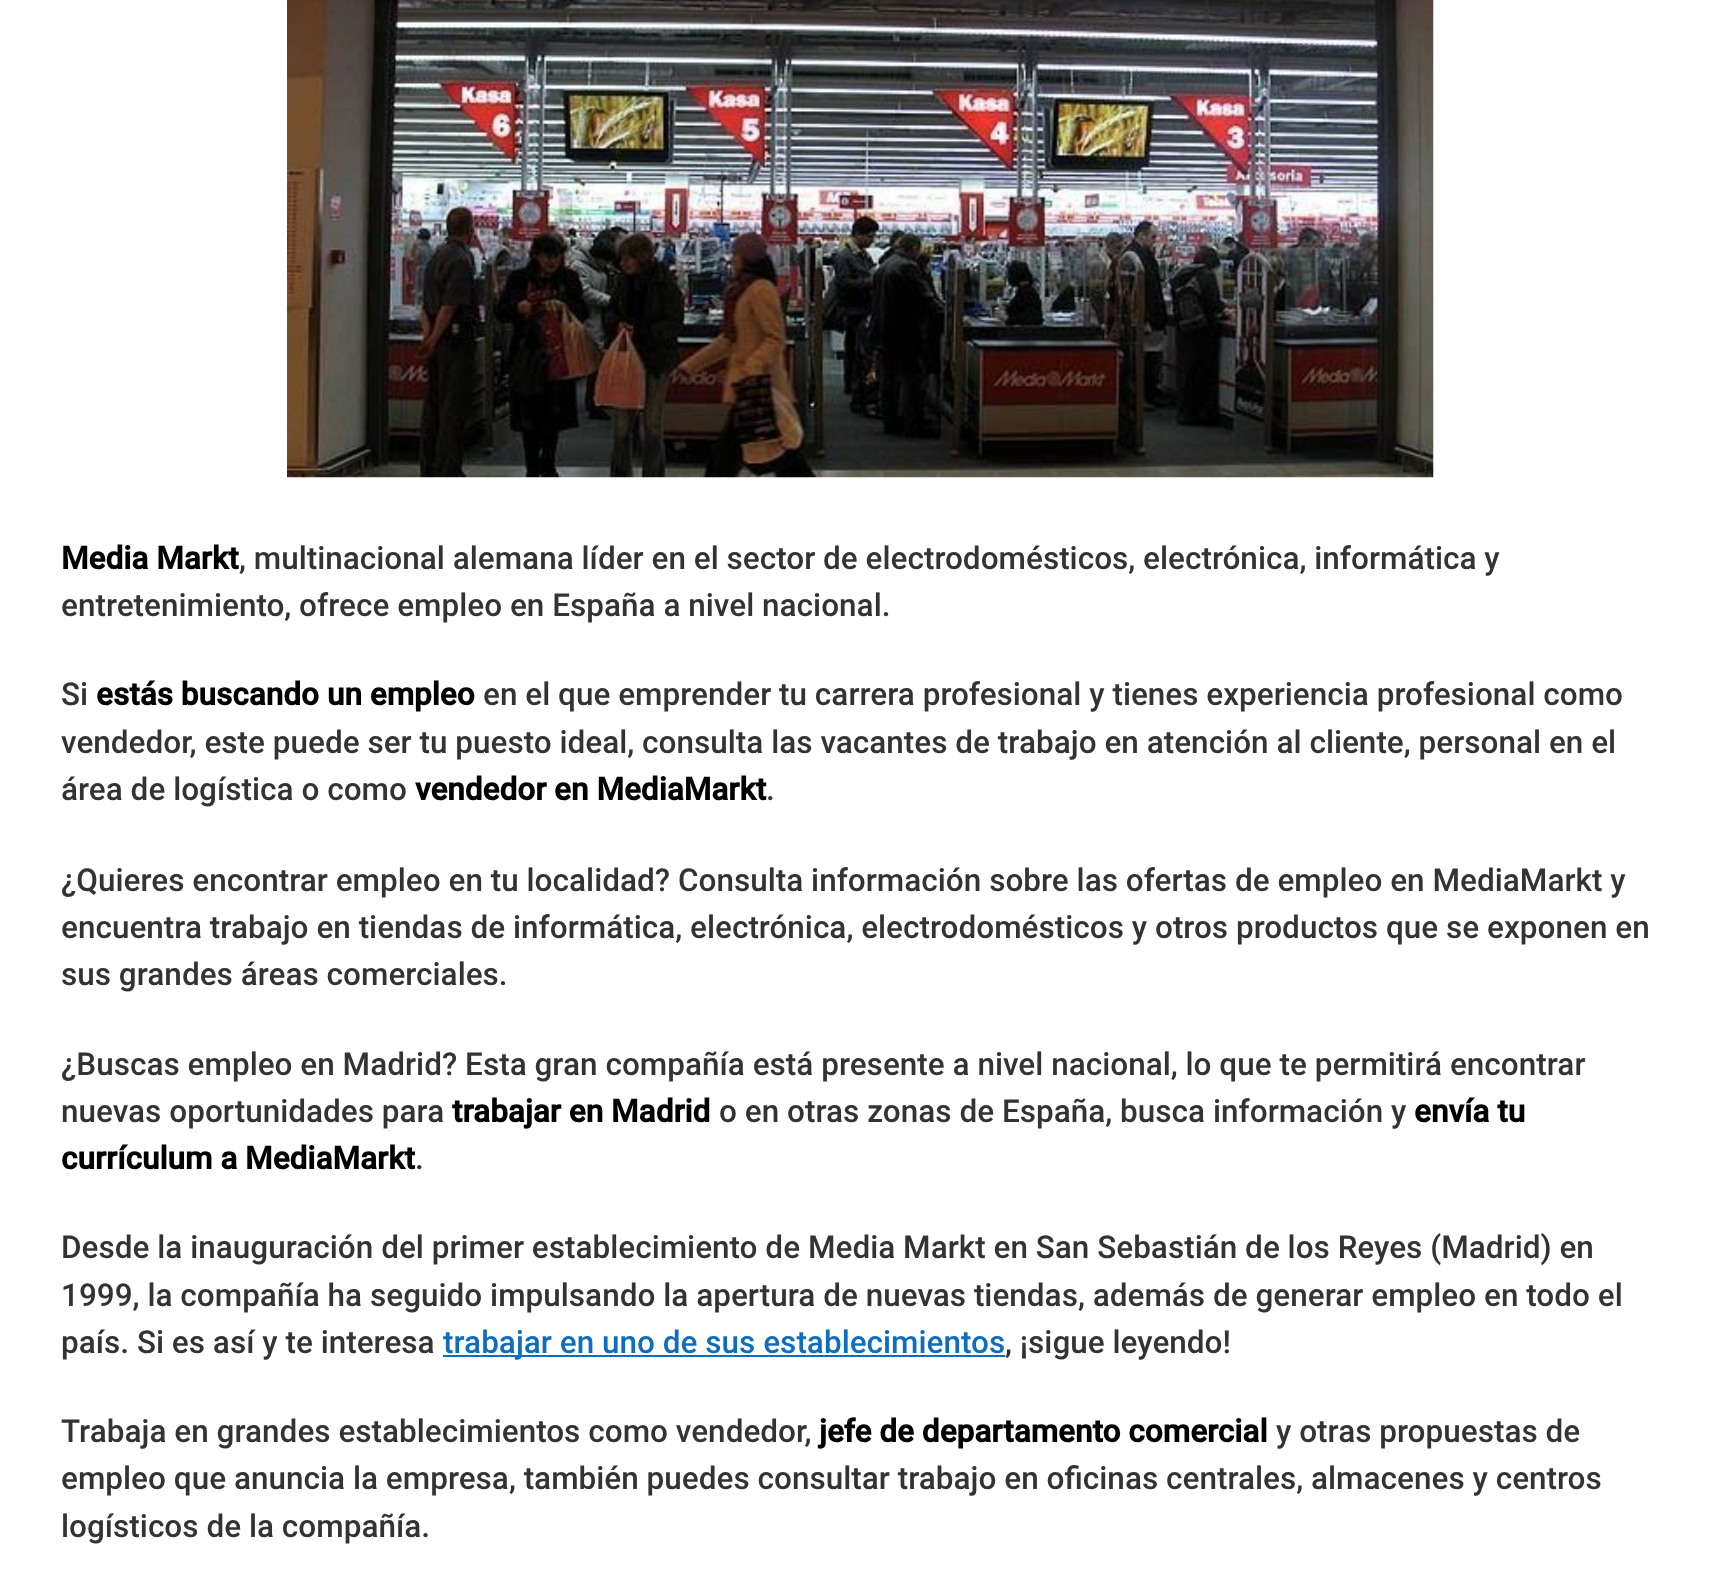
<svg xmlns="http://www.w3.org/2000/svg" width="1717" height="1591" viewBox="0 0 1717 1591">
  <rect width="100%" height="100%" fill="#ffffff"/>
  <image x="287" y="0" width="1147" height="478" href="img1.png"/>
  <text x="61" y="569" font-family="Roboto" font-size="31.5" font-weight="bold" fill="#000000">Media Markt</text>
  <text x="239" y="569" font-family="Roboto" font-size="31.5" font-weight="500" fill="#333333">, multinacional alemana líder en el sector de electrodomésticos, electrónica, informática y</text>
  <text x="61" y="616" font-family="Roboto" font-size="31.5" font-weight="500" fill="#333333">entretenimiento, ofrece empleo en España a nivel nacional.</text>
  <text x="61" y="705" font-family="Roboto" font-size="31.5" font-weight="500" fill="#333333">Si</text>
  <text x="96" y="705" font-family="Roboto" font-size="31.5" font-weight="bold" fill="#000000">estás buscando un empleo</text>
  <text x="483" y="705" font-family="Roboto" font-size="31.5" font-weight="500" fill="#333333">en el que emprender tu carrera profesional y tienes experiencia profesional como</text>
  <text x="61" y="753" font-family="Roboto" font-size="31.5" font-weight="500" fill="#333333">vendedor, este puede ser tu puesto ideal, consulta las vacantes de trabajo en atención al cliente, personal en el</text>
  <text x="61" y="800" font-family="Roboto" font-size="31.5" font-weight="500" fill="#333333">área de logística o como</text>
  <text x="415" y="800" font-family="Roboto" font-size="31.5" font-weight="bold" fill="#000000">vendedor en MediaMarkt</text>
  <text x="766" y="800" font-family="Roboto" font-size="31.5" font-weight="500" fill="#333333">.</text>
  <text x="61" y="891" font-family="Roboto" font-size="31.5" font-weight="500" fill="#333333">¿Quieres encontrar empleo en tu localidad? Consulta información sobre las ofertas de empleo en MediaMarkt y</text>
  <text x="61" y="938" font-family="Roboto" font-size="31.5" font-weight="500" fill="#333333">encuentra trabajo en tiendas de informática, electrónica, electrodomésticos y otros productos que se exponen en</text>
  <text x="61" y="985" font-family="Roboto" font-size="31.5" font-weight="500" fill="#333333">sus grandes áreas comerciales.</text>
  <text x="61" y="1075" font-family="Roboto" font-size="31.5" font-weight="500" fill="#333333">¿Buscas empleo en Madrid? Esta gran compañía está presente a nivel nacional, lo que te permitirá encontrar</text>
  <text x="61" y="1122" font-family="Roboto" font-size="31.5" font-weight="500" fill="#333333">nuevas oportunidades para</text>
  <text x="452" y="1122" font-family="Roboto" font-size="31.5" font-weight="bold" fill="#000000">trabajar en Madrid</text>
  <text x="719" y="1122" font-family="Roboto" font-size="31.5" font-weight="500" fill="#333333">o en otras zonas de España, busca información y</text>
  <text x="1414" y="1122" font-family="Roboto" font-size="31.5" font-weight="bold" fill="#000000">envía tu</text>
  <text x="61" y="1169" font-family="Roboto" font-size="31.5" font-weight="bold" fill="#000000">currículum a MediaMarkt</text>
  <text x="415" y="1169" font-family="Roboto" font-size="31.5" font-weight="500" fill="#333333">.</text>
  <text x="61" y="1258" font-family="Roboto" font-size="31.5" font-weight="500" fill="#333333">Desde la inauguración del primer establecimiento de Media Markt en San Sebastián de los Reyes (Madrid) en</text>
  <text x="61" y="1306" font-family="Roboto" font-size="31.5" font-weight="500" fill="#333333">1999, la compañía ha seguido impulsando la apertura de nuevas tiendas, además de generar empleo en todo el</text>
  <text x="61" y="1353" font-family="Roboto" font-size="31.5" font-weight="500" fill="#333333">país. Si es así y te interesa</text>
  <rect x="443" y="1355" width="562" height="2" fill="#0f6dbf"/>
  <text x="443" y="1353" font-family="Roboto" font-size="31.5" font-weight="500" fill="#0f6dbf">trabajar en uno de sus establecimientos</text>
  <text x="1005" y="1353" font-family="Roboto" font-size="31.5" font-weight="500" fill="#333333">, ¡sigue leyendo!</text>
  <text x="61" y="1442" font-family="Roboto" font-size="31.5" font-weight="500" fill="#333333">Trabaja en grandes establecimientos como vendedor,</text>
  <text x="819" y="1442" font-family="Roboto" font-size="31.5" font-weight="bold" fill="#000000">jefe de departamento comercial</text>
  <text x="1276" y="1442" font-family="Roboto" font-size="31.5" font-weight="500" fill="#333333">y otras propuestas de</text>
  <text x="61" y="1489" font-family="Roboto" font-size="31.5" font-weight="500" fill="#333333">empleo que anuncia la empresa, también puedes consultar trabajo en oficinas centrales, almacenes y centros</text>
  <text x="61" y="1537" font-family="Roboto" font-size="31.5" font-weight="500" fill="#333333">logísticos de la compañía.</text>
</svg>
